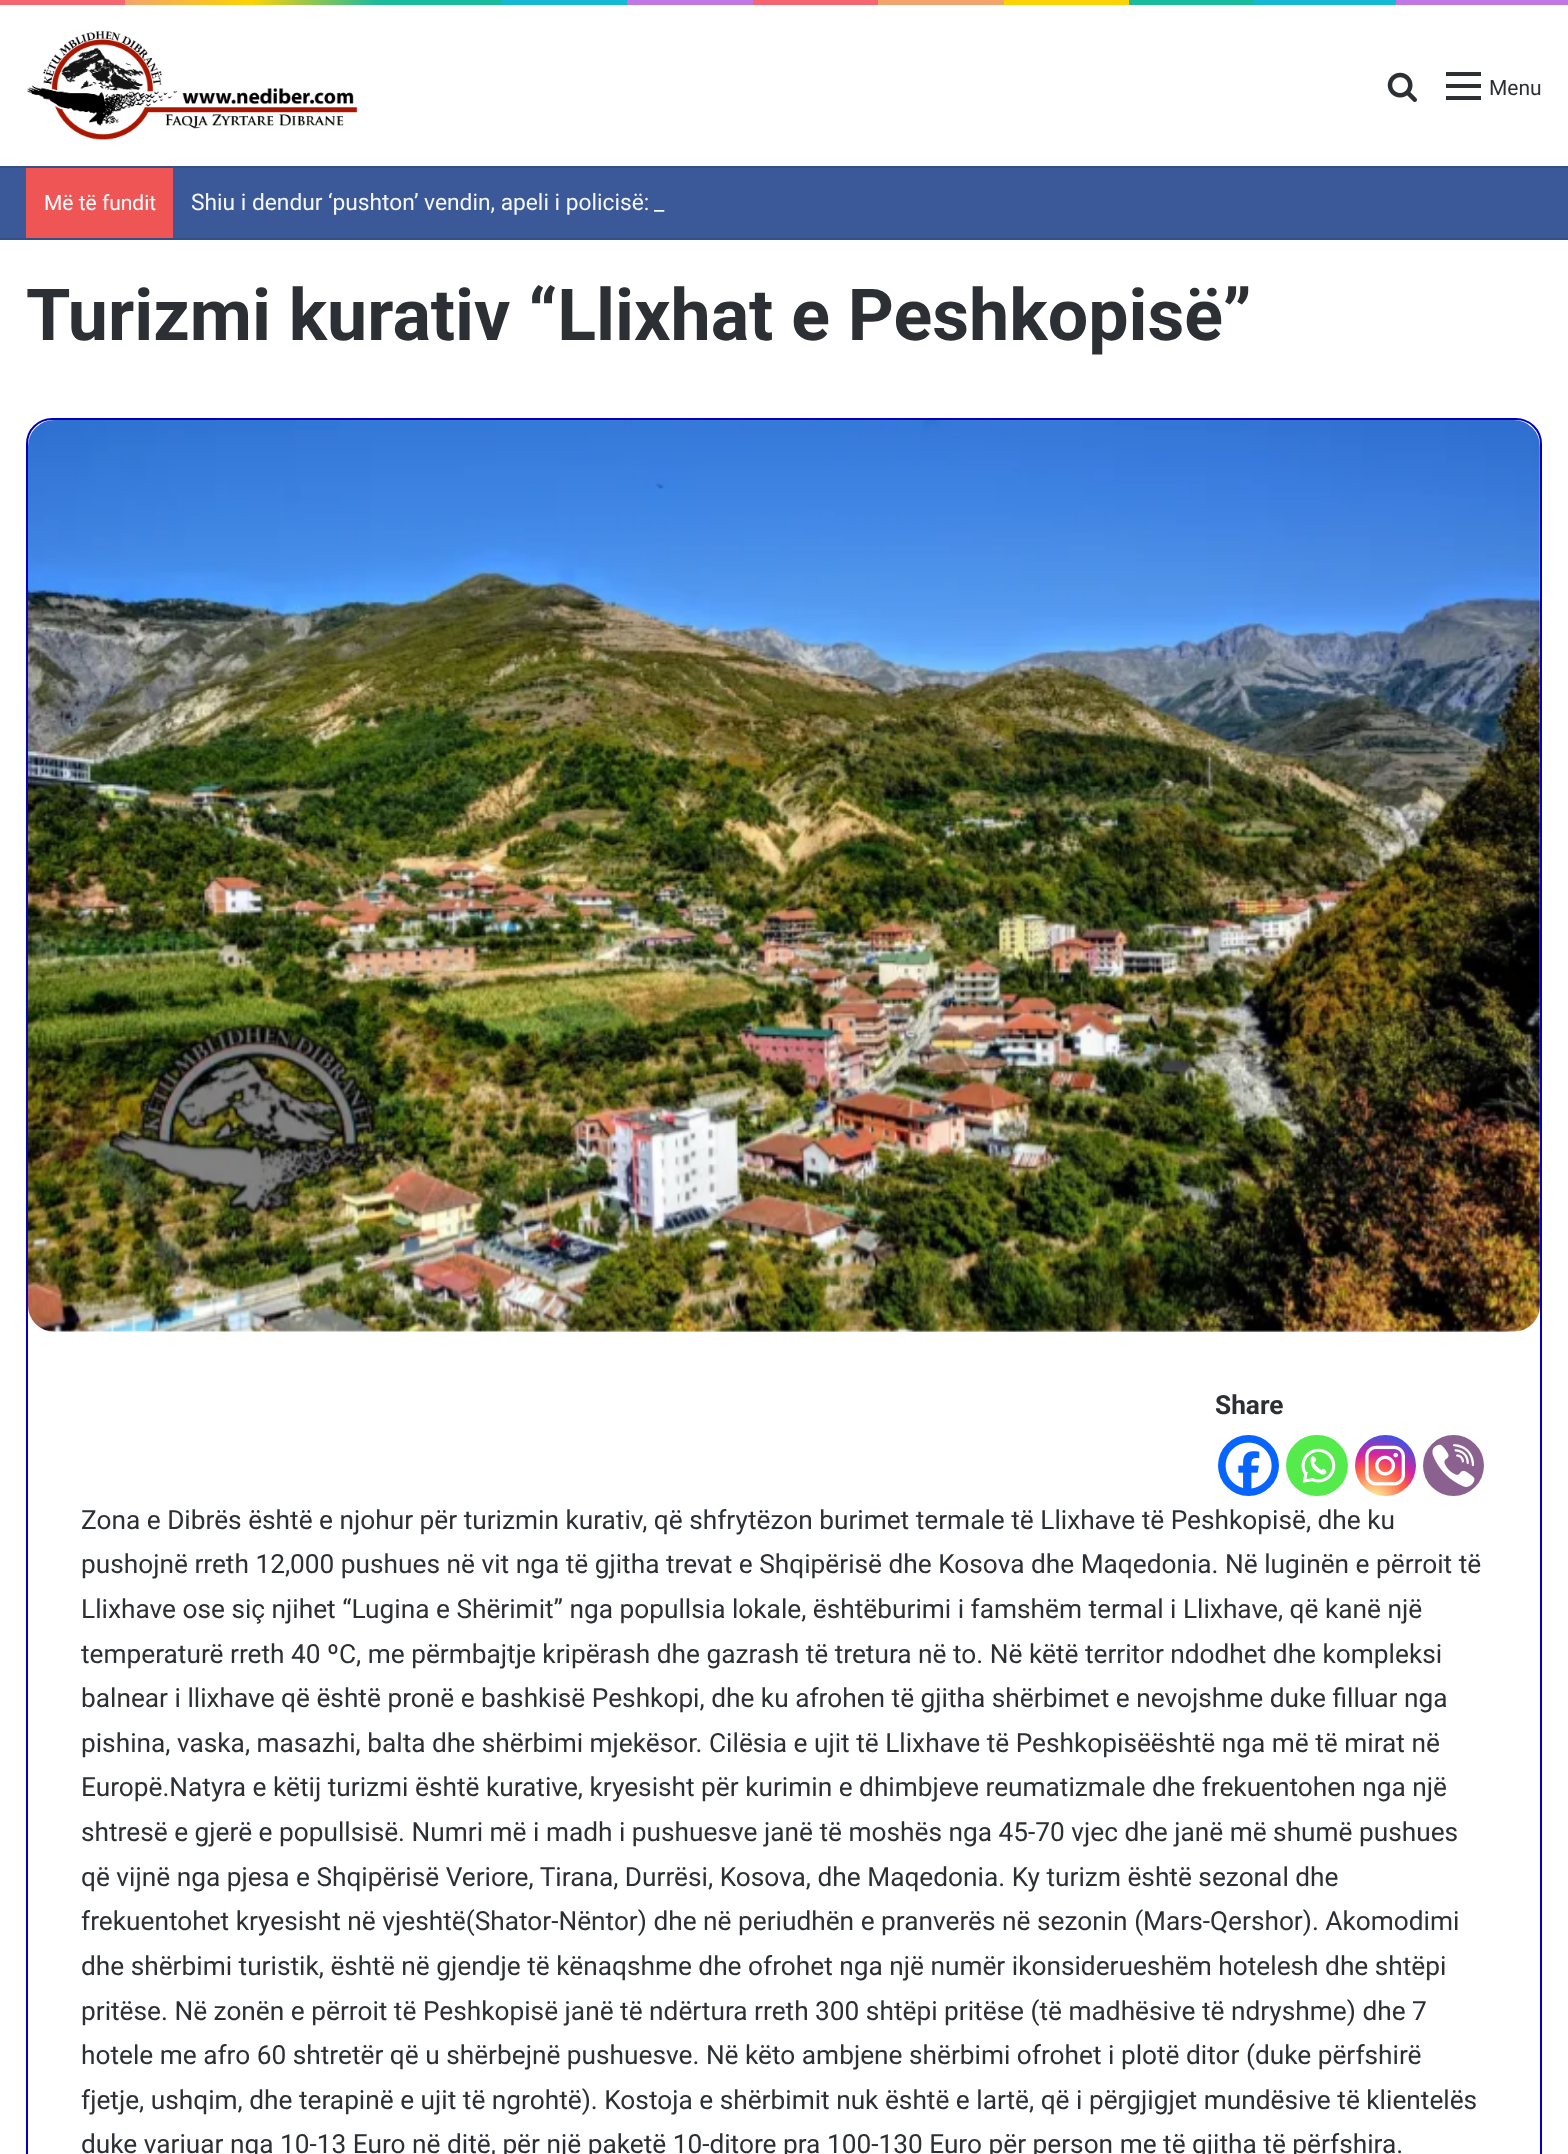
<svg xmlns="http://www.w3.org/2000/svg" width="1568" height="2154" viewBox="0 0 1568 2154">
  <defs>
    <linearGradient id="g1" gradientUnits="userSpaceOnUse" x1="0" y1="2.6" x2="1568" y2="2.6"><stop offset="0" stop-color="#f76570"/><stop offset="0.08" stop-color="#f76570"/><stop offset="0.08" stop-color="#f3a46b"/><stop offset="0.16" stop-color="#ffd205"/><stop offset="0.24" stop-color="#1bbc9b"/><stop offset="0.32" stop-color="#1bbc9b"/><stop offset="0.32" stop-color="#14b9d5"/><stop offset="0.4" stop-color="#14b9d5"/><stop offset="0.4" stop-color="#c377e4"/><stop offset="0.48" stop-color="#c377e4"/><stop offset="0.48" stop-color="#f76570"/><stop offset="0.56" stop-color="#f76570"/><stop offset="0.56" stop-color="#f3a46b"/><stop offset="0.64" stop-color="#f3a46b"/><stop offset="0.64" stop-color="#ffd205"/><stop offset="0.72" stop-color="#ffd205"/><stop offset="0.72" stop-color="#1bbc9b"/><stop offset="0.8" stop-color="#1bbc9b"/><stop offset="0.8" stop-color="#14b9d5"/><stop offset="0.89" stop-color="#14b9d5"/><stop offset="0.89" stop-color="#c377e4"/><stop offset="1" stop-color="#c377e4"/></linearGradient>
    <radialGradient id="g2" gradientUnits="userSpaceOnUse" cx="1373" cy="1501" r="78"><stop offset="0" stop-color="#fdf497"/><stop offset="0.05" stop-color="#fdf497"/><stop offset="0.45" stop-color="#fd5949"/><stop offset="0.6" stop-color="#d6249f"/><stop offset="0.9" stop-color="#285aeb"/></radialGradient>
  </defs>
  <rect width="100%" height="100%" fill="#ffffff"/>
  <rect x="0" y="0" width="1568" height="5" fill="url(#g1)"/>
  <image x="27" y="30" width="331" height="110" href="img1.png"/>
  <image x="1387" y="72" width="30" height="30" href="img2.png"/>
  <rect x="1446" y="84" width="35" height="4" fill="#2c2f34"/>
  <rect x="1446" y="72" width="35" height="4" fill="#2c2f34"/>
  <rect x="1446" y="96" width="35" height="4" fill="#2c2f34"/>
  <text x="1489" y="95" font-family="Roboto" font-size="21" fill="#2c2f34">Menu</text>
  <rect x="0" y="168" width="1568" height="70" fill="#3b5998"/>
  <rect x="0" y="166" width="1568" height="2" fill="#355089"/>
  <rect x="0" y="238" width="1568" height="2" fill="#355089"/>
  <rect x="26" y="168" width="147" height="70" fill="#f05555"/>
  <text x="44" y="210" font-family="Roboto" font-size="21" fill="#ffffff">Më të fundit</text>
  <text x="191" y="210" font-family="Roboto" font-size="22.75" fill="#f6f7f9">Shiu i dendur ‘pushton’ vendin, apeli i policisë:</text>
  <text x="654" y="210" font-family="Roboto" font-size="22.75" fill="#ffffff">_</text>
  <text x="26" y="340" font-family="Roboto" font-size="71.75" font-weight="bold" fill="#2c2f34">Turizmi kurativ “Llixhat e Peshkopisë”</text>
  <rect x="27" y="419" width="1514" height="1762" rx="25" fill="none" stroke="#0600bc" stroke-width="2"/>
  <image x="28" y="420" width="1512" height="912" href="img3.png"/>
  <text x="1215" y="1414" font-family="Roboto" font-size="26.25" font-weight="bold" fill="#2c2f34">Share</text>
  <circle cx="1248.5" cy="1465.5" r="30.5" fill="#0765fe"/>
  <image x="1225" y="1442" width="47" height="47" href="img4.png"/>
  <rect x="1286" y="1435" width="62" height="61" rx="30.5" fill="#55eb4c"/>
  <image x="1301" y="1448" width="35" height="35" href="img5.png"/>
  <circle cx="1385.5" cy="1465.5" r="30.5" fill="url(#g2)"/>
  <image x="1365" y="1445" width="40" height="41" href="img6.png"/>
  <circle cx="1453.5" cy="1465.5" r="30.5" fill="#8b628f"/>
  <image x="1432" y="1444" width="43" height="43" href="img7.png"/>
  <text x="81" y="1529" font-family="Roboto" font-size="26.25" fill="#2c2f34">Zona e Dibrës është e njohur për turizmin kurativ, që shfrytëzon burimet termale të Llixhave të Peshkopisë, dhe ku</text>
  <text x="81" y="1573" font-family="Roboto" font-size="26.25" fill="#2c2f34">pushojnë rreth 12,000 pushues në vit nga të gjitha trevat e Shqipërisë dhe Kosova dhe Maqedonia. Në luginën e përroit të</text>
  <text x="81" y="1618" font-family="Roboto" font-size="26.25" fill="#2c2f34">Llixhave ose siç njihet “Lugina e Shërimit” nga popullsia lokale, ështëburimi i famshëm termal i Llixhave, që kanë një</text>
  <text x="81" y="1663" font-family="Roboto" font-size="26.25" fill="#2c2f34">temperaturë rreth 40 ºC, me përmbajtje kripërash dhe gazrash të tretura në to. Në këtë territor ndodhet dhe kompleksi</text>
  <text x="81" y="1707" font-family="Roboto" font-size="26.25" fill="#2c2f34">balnear i llixhave që është pronë e bashkisë Peshkopi, dhe ku afrohen të gjitha shërbimet e nevojshme duke filluar nga</text>
  <text x="81" y="1752" font-family="Roboto" font-size="26.25" fill="#2c2f34">pishina, vaska, masazhi, balta dhe shërbimi mjekësor. Cilësia e ujit të Llixhave të Peshkopisëështë nga më të mirat në</text>
  <text x="81" y="1796" font-family="Roboto" font-size="26.25" fill="#2c2f34">Europë.Natyra e këtij turizmi është kurative, kryesisht për kurimin e dhimbjeve reumatizmale dhe frekuentohen nga një</text>
  <text x="81" y="1841" font-family="Roboto" font-size="26.25" fill="#2c2f34">shtresë e gjerë e popullsisë. Numri më i madh i pushuesve janë të moshës nga 45-70 vjec dhe janë më shumë pushues</text>
  <text x="81" y="1886" font-family="Roboto" font-size="26.25" fill="#2c2f34">që vijnë nga pjesa e Shqipërisë Veriore, Tirana, Durrësi, Kosova, dhe Maqedonia. Ky turizm është sezonal dhe</text>
  <text x="81" y="1930" font-family="Roboto" font-size="26.25" fill="#2c2f34">frekuentohet kryesisht në vjeshtë(Shator-Nëntor) dhe në periudhën e pranverës në sezonin (Mars-Qershor). Akomodimi</text>
  <text x="81" y="1975" font-family="Roboto" font-size="26.25" fill="#2c2f34">dhe shërbimi turistik, është në gjendje të kënaqshme dhe ofrohet nga një numër ikonsiderueshëm hotelesh dhe shtëpi</text>
  <text x="81" y="2020" font-family="Roboto" font-size="26.25" fill="#2c2f34">pritëse. Në zonën e përroit të Peshkopisë janë të ndërtura rreth 300 shtëpi pritëse (të madhësive të ndryshme) dhe 7</text>
  <text x="81" y="2064" font-family="Roboto" font-size="26.25" fill="#2c2f34">hotele me afro 60 shtretër që u shërbejnë pushuesve. Në këto ambjene shërbimi ofrohet i plotë ditor (duke përfshirë</text>
  <text x="81" y="2109" font-family="Roboto" font-size="26.25" fill="#2c2f34">fjetje, ushqim, dhe terapinë e ujit të ngrohtë). Kostoja e shërbimit nuk është e lartë, që i përgjigjet mundësive të klientelës</text>
  <text x="81" y="2153" font-family="Roboto" font-size="26.25" fill="#2c2f34">duke variuar nga 10-13 Euro në ditë, për një paketë 10-ditore pra 100-130 Euro për person me të gjitha të përfshira.</text>
</svg>
